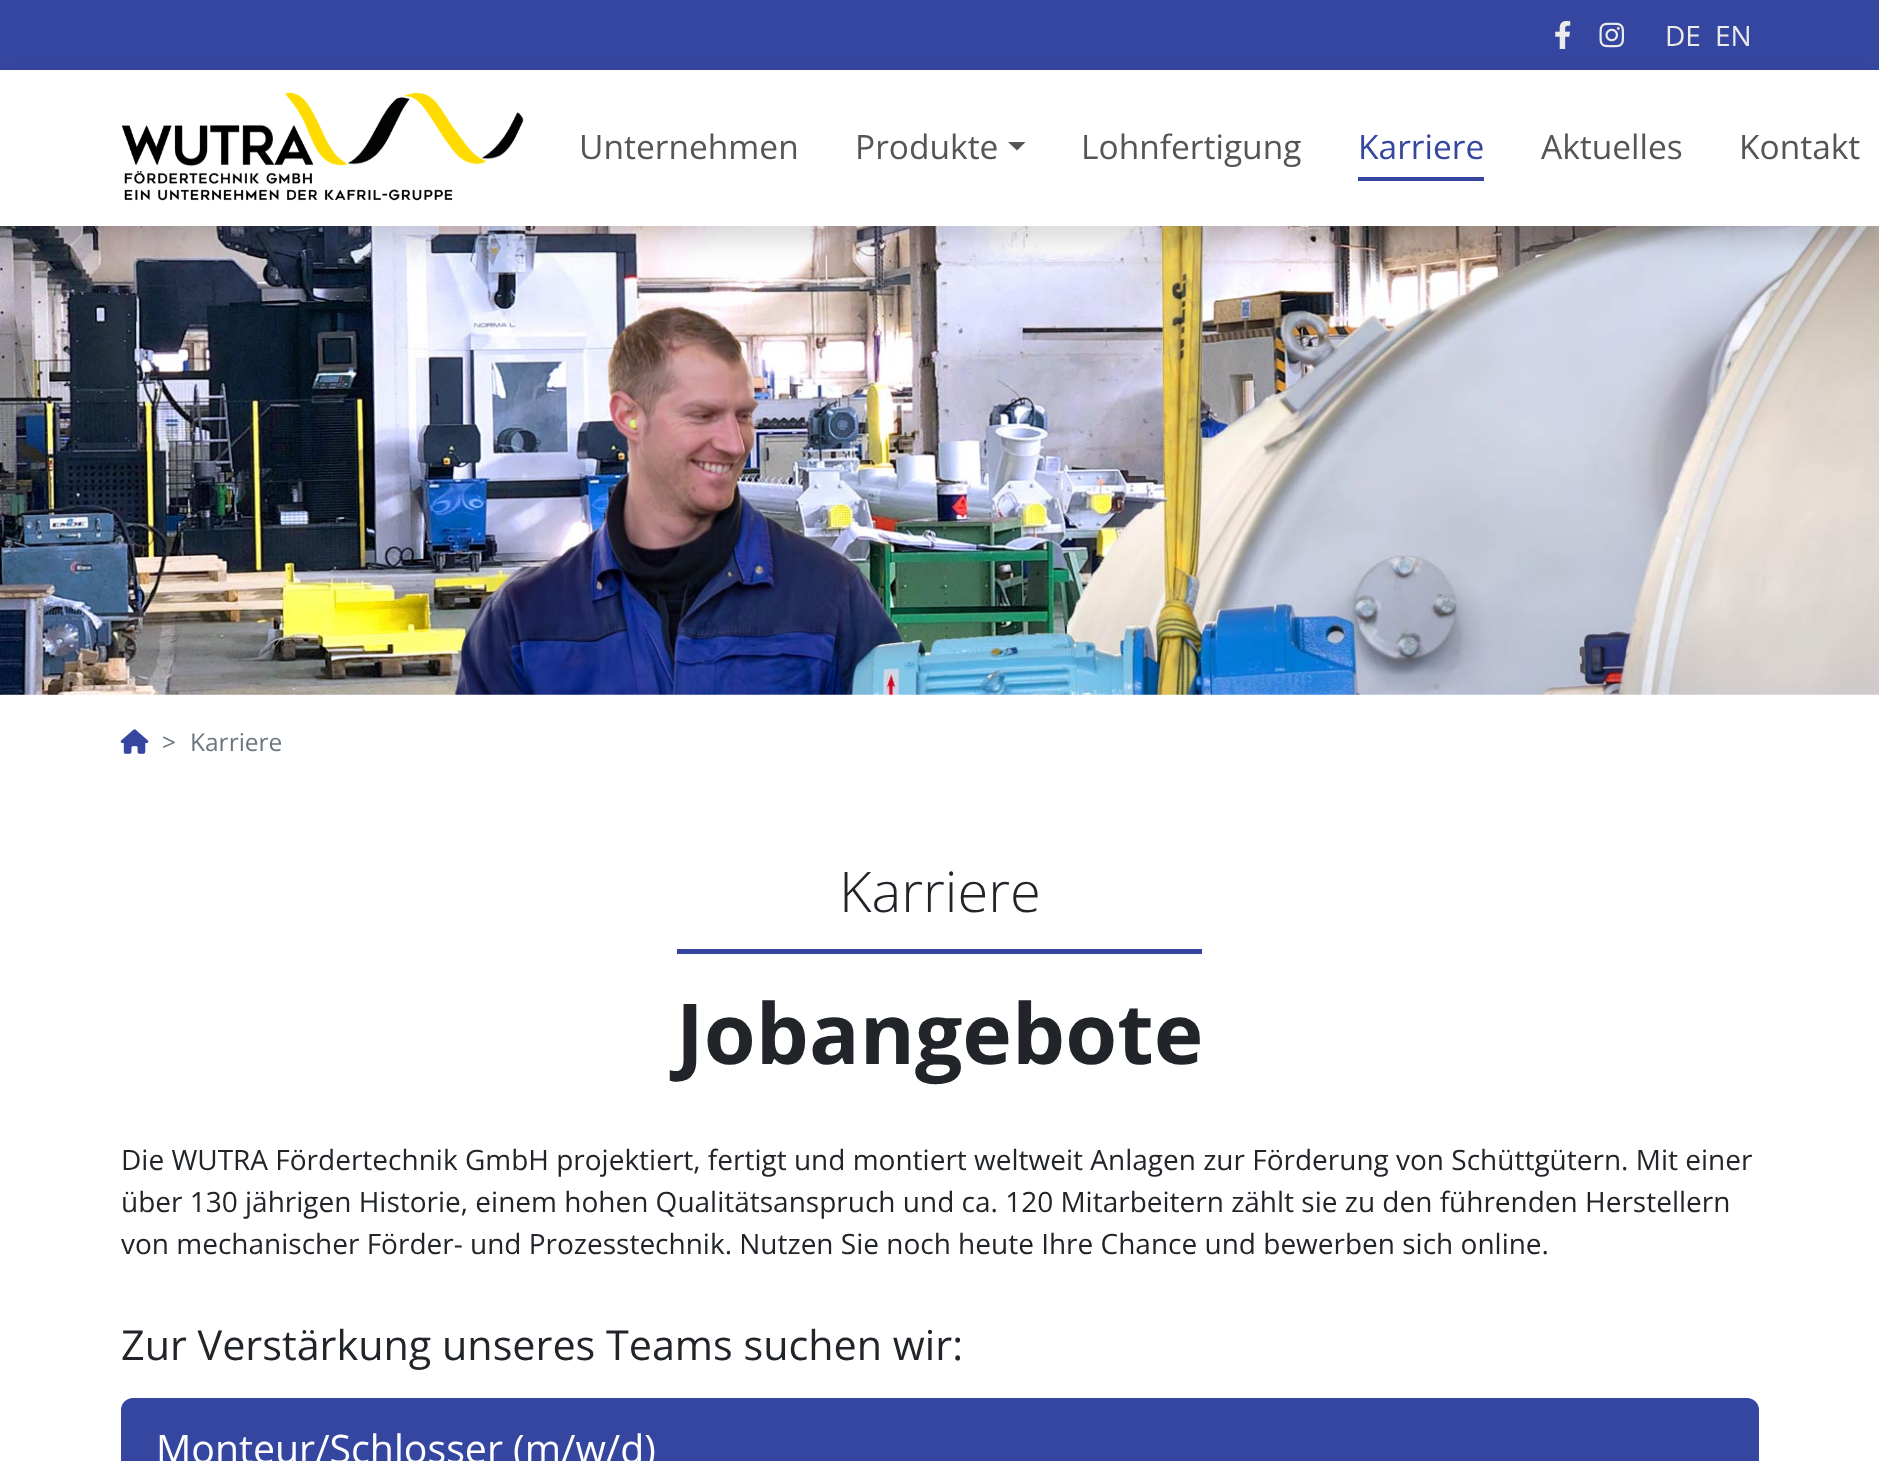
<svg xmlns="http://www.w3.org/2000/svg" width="1879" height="1461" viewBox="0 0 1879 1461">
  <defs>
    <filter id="blur1" x="-50%" y="-200%" width="200%" height="500%"><feGaussianBlur stdDeviation="14"/></filter>
  </defs>
  <rect width="100%" height="100%" fill="#ffffff"/>
  <rect x="0" y="0" width="1879" height="70" fill="#3546a0"/>
  <image x="1555" y="21" width="16" height="28" href="img1.png"/>
  <image x="1599" y="22" width="25" height="26" href="img2.png"/>
  <text x="1665" y="46" font-family="Open Sans" font-size="28" fill="#ebebeb">DE</text>
  <text x="1715" y="46" font-family="Open Sans" font-size="28" fill="#ebebeb">EN</text>
  <image x="0" y="226" width="1879" height="469" href="img4.png"/>
  <rect x="0" y="84" width="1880" height="156" fill="#000000" fill-opacity="0.15" filter="url(#blur1)"/>
  <rect x="0" y="70" width="1879" height="156" fill="#ffffff"/>
  <image x="121" y="92" width="403" height="109" href="img3.png"/>
  <text x="579" y="159" font-family="Open Sans" font-size="33.5" fill="#555555">Unternehmen</text>
  <text x="855" y="159" font-family="Open Sans" font-size="33.5" fill="#555555">Produkte</text>
  <path d="M1008 142H1025.5L1017 150.5Z" fill="#555555"/>
  <text x="1081" y="159" font-family="Open Sans" font-size="33.5" fill="#555555">Lohnfertigung</text>
  <text x="1358" y="159" font-family="Open Sans" font-size="33.5" fill="#3546a0">Karriere</text>
  <rect x="1358" y="177" width="126" height="4" fill="#3546a0"/>
  <text x="1541" y="159" font-family="Open Sans" font-size="33.5" fill="#555555">Aktuelles</text>
  <text x="1739" y="159" font-family="Open Sans" font-size="33.5" fill="#555555">Kontakt</text>
  <image x="120" y="729" width="29" height="25" href="img5.png"/>
  <text x="162" y="751" font-family="Open Sans" font-size="24.5" fill="#6c757d">&gt;</text>
  <text x="190" y="751" font-family="Open Sans" font-size="24.5" fill="#6c757d">Karriere</text>
  <text x="839" y="912" font-family="Open Sans" font-size="56" font-weight="300" fill="#212529">Karriere</text>
  <rect x="677" y="949" width="525" height="5" fill="#3546a0"/>
  <text x="676" y="1064" font-family="Open Sans" font-size="84" font-weight="bold" fill="#212529">Jobangebote</text>
  <text x="121" y="1170" font-family="Open Sans" font-size="28" fill="#212529">Die WUTRA Fördertechnik GmbH projektiert, fertigt und montiert weltweit Anlagen zur Förderung von Schüttgütern. Mit einer</text>
  <text x="121" y="1212" font-family="Open Sans" font-size="28" fill="#212529">über 130 jährigen Historie, einem hohen Qualitätsanspruch und ca. 120 Mitarbeitern zählt sie zu den führenden Herstellern</text>
  <text x="121" y="1254" font-family="Open Sans" font-size="28" fill="#212529">von mechanischer Förder- und Prozesstechnik. Nutzen Sie noch heute Ihre Chance und bewerben sich online.</text>
  <text x="121" y="1360" font-family="Open Sans" font-size="41.3" fill="#212529">Zur Verstärkung unseres Teams suchen wir:</text>
  <rect x="121" y="1398" width="1638" height="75" rx="12" fill="#3546a0"/>
  <text x="156" y="1463" font-family="Open Sans" font-size="39.25" fill="#ffffff">Monteur/Schlosser (m/w/d)</text>
</svg>
